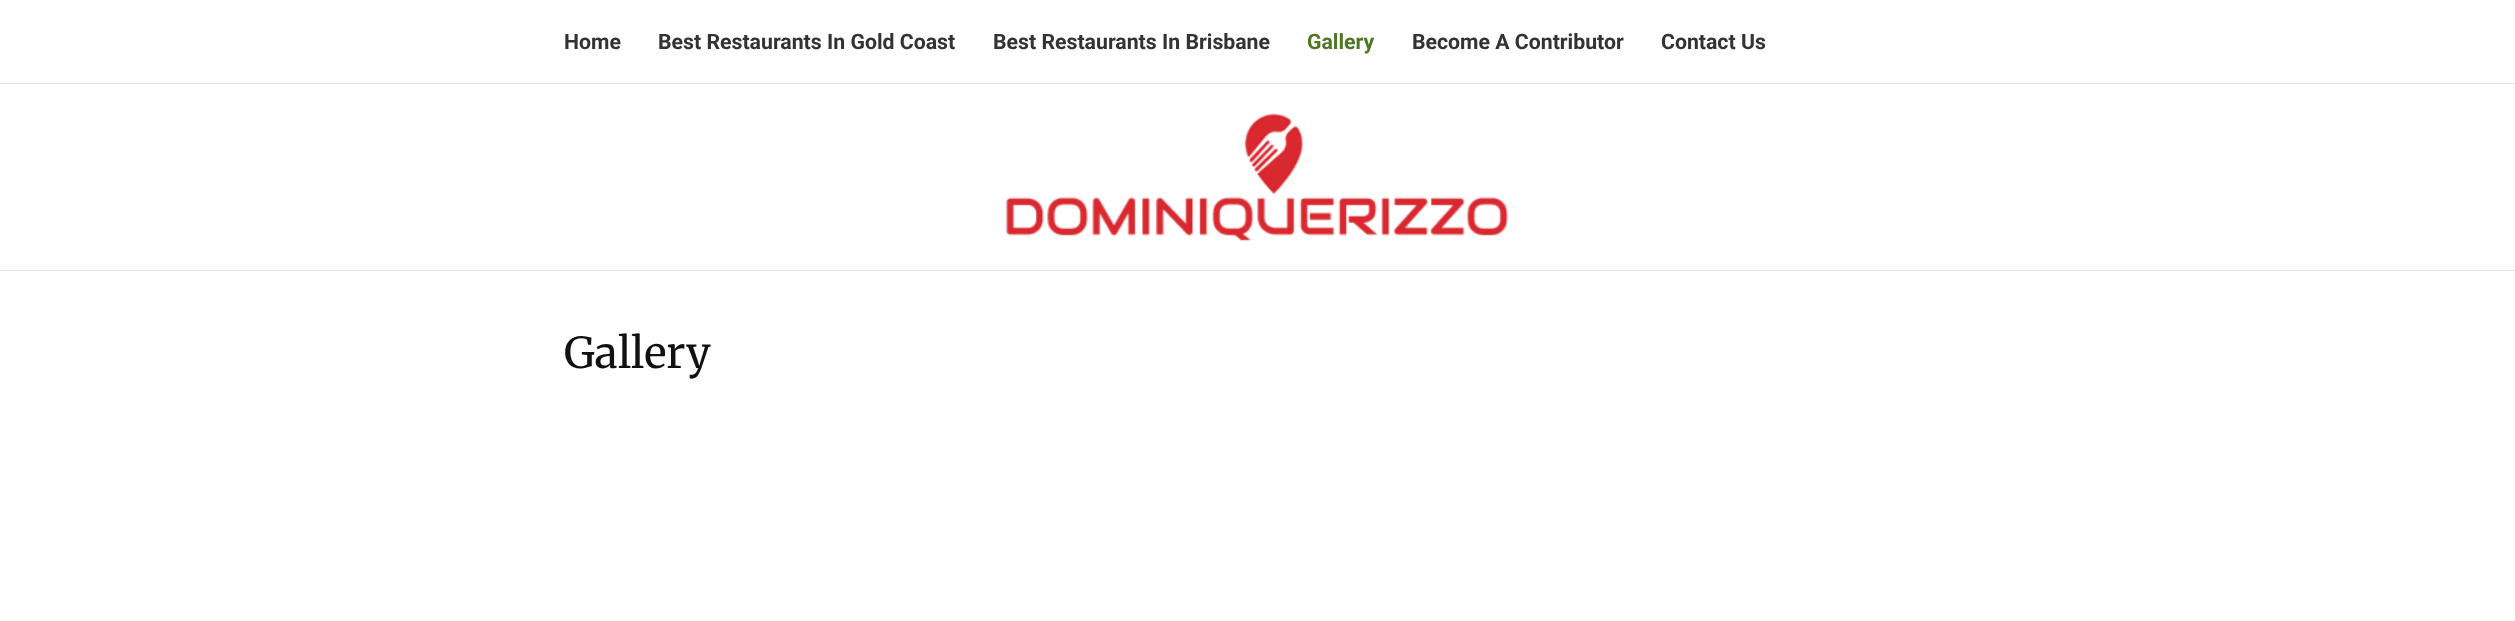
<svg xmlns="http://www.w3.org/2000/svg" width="2515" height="621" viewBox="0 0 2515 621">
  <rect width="100%" height="100%" fill="#ffffff"/>
  <rect x="0" y="270" width="2515" height="1" fill="#e6e6e6"/>
  <text x="564" y="49" font-family="Roboto" font-size="21.25" font-weight="bold" fill="#333333">Home</text>
  <text x="658" y="49" font-family="Roboto" font-size="21.25" font-weight="bold" fill="#333333">Best Restaurants In Gold Coast</text>
  <text x="993" y="49" font-family="Roboto" font-size="21.25" font-weight="bold" fill="#333333">Best Restaurants In Brisbane</text>
  <text x="1307" y="49" font-family="Roboto" font-size="21.25" font-weight="bold" fill="#4f7623">Gallery</text>
  <text x="1412" y="49" font-family="Roboto" font-size="21.25" font-weight="bold" fill="#333333">Become A Contributor</text>
  <text x="1661" y="49" font-family="Roboto" font-size="21.25" font-weight="bold" fill="#333333">Contact Us</text>
  <rect x="0" y="83" width="2515" height="1" fill="#e6e6e6"/>
  <image x="1005" y="113" width="504" height="128" href="img1.png"/>
  <text x="564" y="368" font-family="Merriweather" font-size="42.5" fill="#111111">Gallery</text>
</svg>
